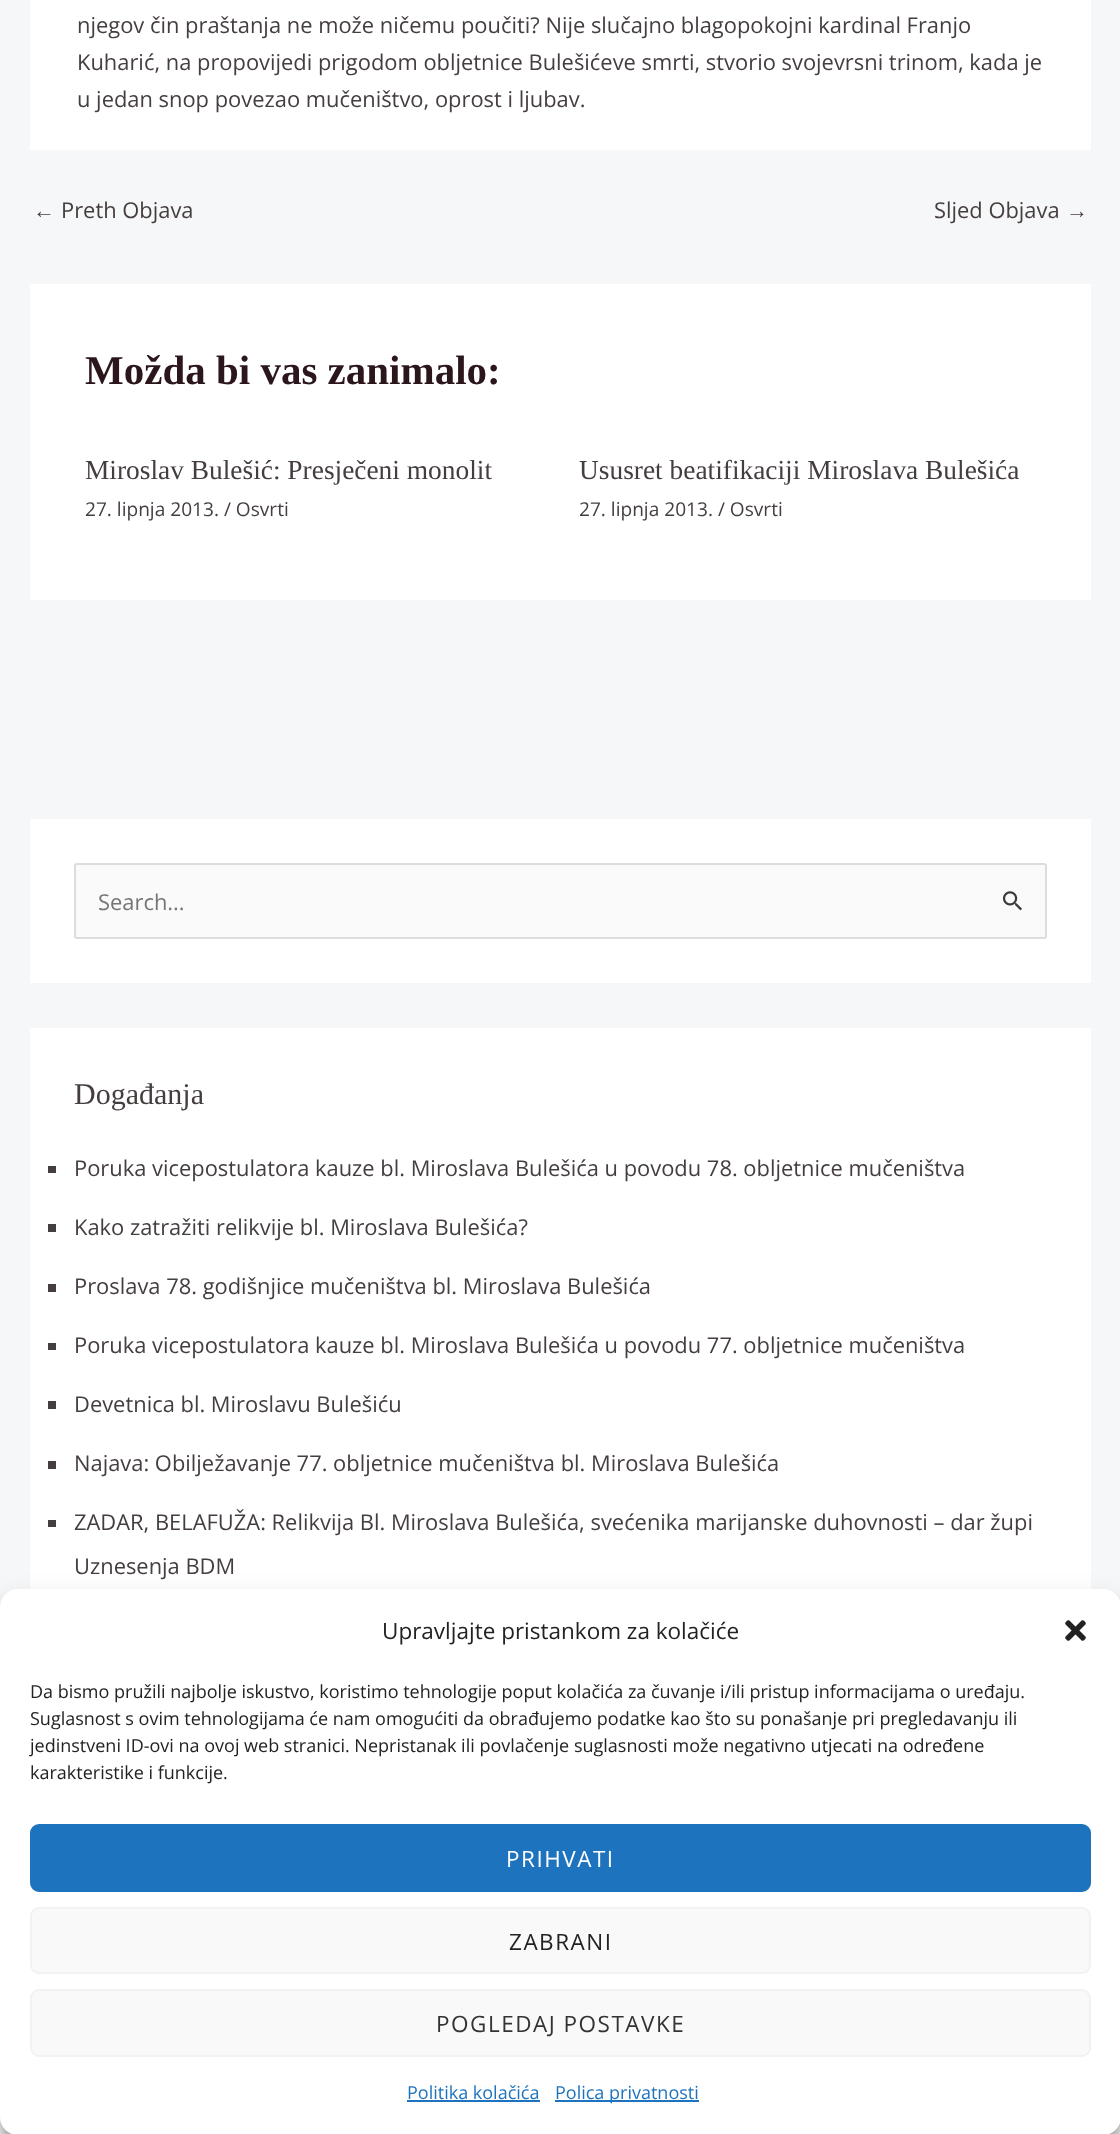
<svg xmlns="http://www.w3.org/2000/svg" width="1120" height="2134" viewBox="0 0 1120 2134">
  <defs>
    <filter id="blur1" x="-50%" y="-200%" width="200%" height="500%"><feGaussianBlur stdDeviation="4.5"/></filter>
    <filter id="blur2" x="-50%" y="-200%" width="200%" height="500%"><feGaussianBlur stdDeviation="15"/></filter>
  </defs>
  <rect width="100%" height="100%" fill="#f6f7f8"/>
  <rect x="30" y="0" width="1061" height="150" fill="#ffffff"/>
  <text x="77" y="33" font-family="Open Sans" font-size="21.9" fill="#453e3e">njegov čin praštanja ne može ničemu poučiti? Nije slučajno blagopokojni kardinal Franjo</text>
  <text x="77" y="70" font-family="Open Sans" font-size="21.9" fill="#453e3e">Kuharić, na propovijedi prigodom obljetnice Bulešićeve smrti, stvorio svojevrsni trinom, kada je</text>
  <text x="77" y="107" font-family="Open Sans" font-size="21.9" fill="#453e3e">u jedan snop povezao mučeništvo, oprost i ljubav.</text>
  <text x="33" y="218" font-family="Liberation Sans" font-size="21.9" fill="#453e3e">←</text>
  <text x="61" y="218" font-family="Open Sans" font-size="21.9" fill="#453e3e">Preth Objava</text>
  <text x="934" y="218" font-family="Open Sans" font-size="21.9" fill="#453e3e">Sljed Objava</text>
  <text x="1066" y="218" font-family="Liberation Sans" font-size="21.9" fill="#453e3e">→</text>
  <rect x="30" y="284" width="1061" height="316" fill="#ffffff"/>
  <text x="85" y="384" font-family="Liberation Serif" font-size="41" font-weight="bold" fill="#2b161b">Možda bi vas zanimalo:</text>
  <text x="85" y="479" font-family="Liberation Serif" font-size="27.4" fill="#453e3e">Miroslav Bulešić: Presječeni monolit</text>
  <text x="85" y="516" font-family="Open Sans" font-size="19.1" fill="#453e3e">27. lipnja 2013. / Osvrti</text>
  <text x="579" y="479" font-family="Liberation Serif" font-size="27.4" fill="#453e3e">Ususret beatifikaciji Miroslava Bulešića</text>
  <text x="579" y="516" font-family="Open Sans" font-size="19.1" fill="#453e3e">27. lipnja 2013. / Osvrti</text>
  <rect x="30" y="819" width="1061" height="164" fill="#ffffff"/>
  <rect x="75" y="864" width="971" height="74" rx="2" fill="#fafafa" stroke="#dddddd" stroke-width="2"/>
  <text x="98" y="910" font-family="Open Sans" font-size="21.9" fill="#757575">Search...</text>
  <image x="1003" y="891" width="19" height="20" href="img1.png"/>
  <rect x="30" y="1028" width="1061" height="561" fill="#ffffff"/>
  <text x="74" y="1104" font-family="Liberation Serif" font-size="30" fill="#453e3e">Događanja</text>
  <rect x="48" y="1166" width="8" height="7" fill="#453e3e"/>
  <text x="74" y="1176" font-family="Open Sans" font-size="21.9" fill="#453e3e">Poruka vicepostulatora kauze bl. Miroslava Bulešića u povodu 78. obljetnice mučeništva</text>
  <rect x="48" y="1224" width="8" height="8" fill="#453e3e"/>
  <text x="74" y="1235" font-family="Open Sans" font-size="21.9" fill="#453e3e">Kako zatražiti relikvije bl. Miroslava Bulešića?</text>
  <rect x="48" y="1284" width="8" height="8" fill="#453e3e"/>
  <text x="74" y="1294" font-family="Open Sans" font-size="21.9" fill="#453e3e">Proslava 78. godišnjice mučeništva bl. Miroslava Bulešića</text>
  <rect x="48" y="1343" width="8" height="7" fill="#453e3e"/>
  <text x="74" y="1353" font-family="Open Sans" font-size="21.9" fill="#453e3e">Poruka vicepostulatora kauze bl. Miroslava Bulešića u povodu 77. obljetnice mučeništva</text>
  <rect x="48" y="1401" width="8" height="8" fill="#453e3e"/>
  <text x="74" y="1412" font-family="Open Sans" font-size="21.9" fill="#453e3e">Devetnica bl. Miroslavu Bulešiću</text>
  <rect x="48" y="1461" width="8" height="8" fill="#453e3e"/>
  <text x="74" y="1471" font-family="Open Sans" font-size="21.9" fill="#453e3e">Najava: Obilježavanje 77. obljetnice mučeništva bl. Miroslava Bulešića</text>
  <rect x="48" y="1520" width="8" height="7" fill="#453e3e"/>
  <text x="74" y="1530" font-family="Open Sans" font-size="21.9" fill="#453e3e">ZADAR, BELAFUŽA: Relikvija Bl. Miroslava Bulešića, svećenika marijanske duhovnosti – dar župi</text>
  <text x="74" y="1574" font-family="Open Sans" font-size="21.9" fill="#453e3e">Uznesenja BDM</text>
  <rect x="0" y="2117" width="1120" height="17" fill="#ffffff"/>
  <rect x="0" y="1598" width="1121" height="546" rx="18" fill="#000000" fill-opacity="0.23" filter="url(#blur1)"/>
  <rect x="0" y="1604" width="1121" height="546" rx="18" fill="#000000" fill-opacity="0.19" filter="url(#blur2)"/>
  <rect x="0" y="1589" width="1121" height="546" rx="18" fill="#ffffff"/>
  <text x="382" y="1639" font-family="Open Sans" font-size="22.5" fill="#222222">Upravljajte pristankom za kolačiće</text>
  <image x="1065" y="1620" width="21" height="21" href="img2.png"/>
  <text x="30" y="1698" font-family="Open Sans" font-size="18" fill="#222222">Da bismo pružili najbolje iskustvo, koristimo tehnologije poput kolačića za čuvanje i/ili pristup informacijama o uređaju.</text>
  <text x="30" y="1725" font-family="Open Sans" font-size="18" fill="#222222">Suglasnost s ovim tehnologijama će nam omogućiti da obrađujemo podatke kao što su ponašanje pri pregledavanju ili</text>
  <text x="30" y="1752" font-family="Open Sans" font-size="18" fill="#222222">jedinstveni ID-ovi na ovoj web stranici. Nepristanak ili povlačenje suglasnosti može negativno utjecati na određene</text>
  <text x="30" y="1779" font-family="Open Sans" font-size="18" fill="#222222">karakteristike i funkcije.</text>
  <rect x="31" y="1825" width="1059" height="66" rx="8" fill="#1e73be" stroke="#1e73be" stroke-width="2"/>
  <text x="506" y="1867" font-family="Open Sans" font-size="22.5" letter-spacing="1.5" fill="#ffffff">PRIHVATI</text>
  <rect x="31" y="1908" width="1059" height="65" rx="8" fill="#f9f9f9" stroke="#f2f2f2" stroke-width="2"/>
  <text x="509" y="1950" font-family="Open Sans" font-size="22.5" letter-spacing="1.5" fill="#222222">ZABRANI</text>
  <rect x="31" y="1990" width="1059" height="66" rx="8" fill="#f9f9f9" stroke="#f2f2f2" stroke-width="2"/>
  <text x="436" y="2032" font-family="Open Sans" font-size="22.5" letter-spacing="1.5" fill="#333333">POGLEDAJ POSTAVKE</text>
  <text x="407" y="2099" font-family="Open Sans" font-size="18" fill="#1e73be">Politika kolačića</text>
  <rect x="407" y="2100" width="133" height="2" fill="#1e73be"/>
  <rect x="555" y="2100" width="144" height="2" fill="#1e73be"/>
  <text x="555" y="2099" font-family="Open Sans" font-size="18" fill="#1e73be">Polica privatnosti</text>
</svg>
